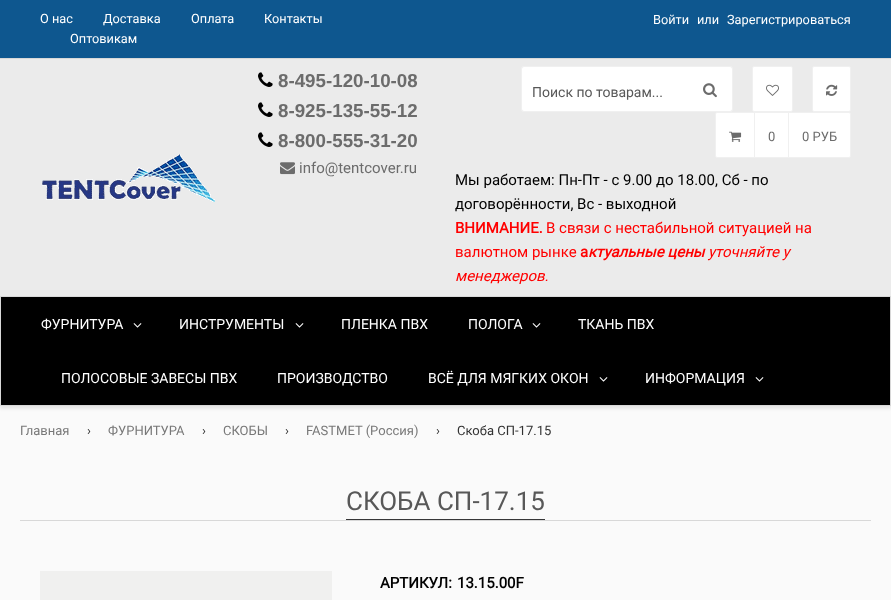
<svg xmlns="http://www.w3.org/2000/svg" width="891" height="600" viewBox="0 0 891 600">
  <defs>
    <filter id="blur1" x="-50%" y="-200%" width="200%" height="500%"><feGaussianBlur stdDeviation="1.5"/></filter>
  </defs>
  <rect width="100%" height="100%" fill="#fafafa"/>
  <rect x="0" y="0" width="891" height="58" fill="#0e578f"/>
  <rect x="0" y="58" width="891" height="1" fill="#d8d8d8"/>
  <text x="40" y="23" font-family="Roboto" font-size="12.75" fill="#ffffff">О нас</text>
  <text x="103" y="23" font-family="Roboto" font-size="12.75" fill="#ffffff">Доставка</text>
  <text x="191" y="23" font-family="Roboto" font-size="12.75" fill="#ffffff">Оплата</text>
  <text x="264" y="23" font-family="Roboto" font-size="12.75" fill="#ffffff">Контакты</text>
  <text x="70" y="43" font-family="Roboto" font-size="12.75" fill="#ffffff">Оптовикам</text>
  <text x="653" y="24" font-family="Roboto" font-size="12.75" fill="#ffffff">Войти</text>
  <text x="697" y="24" font-family="Roboto" font-size="12.75" fill="#ffffff">или</text>
  <text x="727" y="24" font-family="Roboto" font-size="12.75" fill="#ffffff">Зарегистрироваться</text>
  <rect x="0" y="59" width="891" height="237" fill="#ebebeb"/>
  <image x="42" y="154" width="173" height="48" href="img1.png"/>
  <image x="258" y="72" width="15" height="15" href="img2.png"/>
  <text x="278" y="87" font-family="Liberation Sans" font-size="18.75" font-weight="bold" fill="#6c6c6c">8-495-120-10-08</text>
  <image x="258" y="102" width="15" height="15" href="img2.png"/>
  <text x="278" y="117" font-family="Liberation Sans" font-size="18.75" font-weight="bold" fill="#6c6c6c">8-925-135-55-12</text>
  <image x="258" y="132" width="15" height="15" href="img2.png"/>
  <text x="278" y="147" font-family="Liberation Sans" font-size="18.75" font-weight="bold" fill="#6c6c6c">8-800-555-31-20</text>
  <image x="280" y="162" width="15" height="13" href="img3.png"/>
  <text x="299" y="173" font-family="Roboto" font-size="15" fill="#6c6c6c">info@tentcover.ru</text>
  <rect x="521.5" y="66.5" width="211" height="45" rx="1.5" fill="none" stroke="#f0f0f0"/>
  <rect x="522" y="67" width="210" height="44" rx="2" fill="#ffffff"/>
  <text x="532" y="97" font-family="Roboto" font-size="14" fill="#585858">Поиск по товарам...</text>
  <image x="703" y="83" width="14" height="15" href="img4.png"/>
  <rect x="752.5" y="66.5" width="40" height="45" rx="1.5" fill="#ffffff" stroke="#f0f0f0"/>
  <image x="766" y="84" width="13" height="12" href="img5.png"/>
  <rect x="812.5" y="66.5" width="38" height="45" rx="1.5" fill="#ffffff" stroke="#f0f0f0"/>
  <image x="826" y="84" width="12" height="12" href="img6.png"/>
  <rect x="715.5" y="112.5" width="135" height="45" rx="1.5" fill="#ffffff" stroke="#f0f0f0"/>
  <image x="729" y="131" width="13" height="11" href="img7.png"/>
  <rect x="754" y="113" width="1" height="44" fill="#f0f0f0"/>
  <text x="768" y="141" font-family="Roboto" font-size="13" fill="#6c6c6c">0</text>
  <rect x="788" y="113" width="1" height="44" fill="#f0f0f0"/>
  <text x="802" y="141" font-family="Roboto" font-size="13" fill="#6c6c6c">0 РУБ</text>
  <text x="455" y="185" font-family="Roboto" font-size="15" fill="#000000">Мы работаем: Пн-Пт - с 9.00 до 18.00, Сб - по</text>
  <text x="455" y="209" font-family="Roboto" font-size="15" fill="#000000">договорённости, Вс - выходной</text>
  <text x="455" y="233" font-family="Roboto" font-size="15" font-weight="bold" fill="#ff0000">ВНИМАНИЕ.</text>
  <text x="546" y="233" font-family="Roboto" font-size="15" fill="#ff0000">В связи с нестабильной ситуацией на</text>
  <text x="455" y="257" font-family="Roboto" font-size="15" fill="#ff0000">валютном рынке</text>
  <text x="580" y="257" font-family="Roboto" font-size="15" font-weight="bold" fill="#ff0000">а</text>
  <text x="588" y="257" font-family="Roboto" font-size="15" font-weight="bold" font-style="italic" fill="#ff0000">ктуальные цены</text>
  <text x="708" y="257" font-family="Roboto" font-size="15" font-style="italic" fill="#ff0000">уточняйте у</text>
  <text x="455" y="281" font-family="Roboto" font-size="15" font-style="italic" fill="#ff0000">менеджеров.</text>
  <rect x="0" y="299" width="891" height="110" fill="#e5e5e5" filter="url(#blur1)"/>
  <rect x="0.5" y="296.5" width="890" height="109" fill="#000000" stroke="#d8d8d8"/>
  <text x="41" y="329" font-family="Roboto" font-size="14" fill="#ffffff">ФУРНИТУРА</text>
  <image x="133" y="323" width="9" height="5" href="img8.png"/>
  <text x="179" y="329" font-family="Roboto" font-size="14" fill="#ffffff">ИНСТРУМЕНТЫ</text>
  <image x="295" y="323" width="9" height="5" href="img8.png"/>
  <text x="341" y="329" font-family="Roboto" font-size="14" fill="#ffffff">ПЛЕНКА ПВХ</text>
  <text x="468" y="329" font-family="Roboto" font-size="14" fill="#ffffff">ПОЛОГА</text>
  <image x="532" y="323" width="9" height="5" href="img8.png"/>
  <text x="578" y="329" font-family="Roboto" font-size="14" fill="#ffffff">ТКАНЬ ПВХ</text>
  <text x="61" y="383" font-family="Roboto" font-size="14" fill="#ffffff">ПОЛОСОВЫЕ ЗАВЕСЫ ПВХ</text>
  <text x="277" y="383" font-family="Roboto" font-size="14" fill="#ffffff">ПРОИЗВОДСТВО</text>
  <text x="428" y="383" font-family="Roboto" font-size="14" fill="#ffffff">ВСЁ ДЛЯ МЯГКИХ ОКОН</text>
  <image x="599" y="377" width="9" height="5" href="img8.png"/>
  <text x="645" y="383" font-family="Roboto" font-size="14" fill="#ffffff">ИНФОРМАЦИЯ</text>
  <image x="755" y="377" width="9" height="5" href="img8.png"/>
  <text x="20" y="435" font-family="Roboto" font-size="13" fill="#787878">Главная</text>
  <text x="87" y="435" font-family="Roboto" font-size="13" fill="#323232">›</text>
  <text x="108" y="435" font-family="Roboto" font-size="13" fill="#787878">ФУРНИТУРА</text>
  <text x="202" y="435" font-family="Roboto" font-size="13" fill="#323232">›</text>
  <text x="223" y="435" font-family="Roboto" font-size="13" fill="#787878">СКОБЫ</text>
  <text x="285" y="435" font-family="Roboto" font-size="13" fill="#323232">›</text>
  <text x="306" y="435" font-family="Roboto" font-size="13" fill="#787878">FASTMET (Россия)</text>
  <text x="436" y="435" font-family="Roboto" font-size="13" fill="#323232">›</text>
  <text x="457" y="435" font-family="Roboto" font-size="13" fill="#323232">Скоба СП-17.15</text>
  <rect x="20" y="520" width="851" height="1" fill="#d8d8d8"/>
  <rect x="346" y="519" width="199" height="1" fill="#373738"/>
  <text x="346" y="510" font-family="Roboto" font-size="26" fill="#585858">СКОБА СП-17.15</text>
  <rect x="40" y="571" width="292" height="29" fill="#f0f0ef"/>
  <text x="380" y="588" font-family="Roboto" font-size="15" font-weight="bold" fill="#000000">АРТИКУЛ:</text>
  <text x="457" y="588" font-family="Roboto" font-size="15" font-weight="bold" fill="#000000">13.15.00F</text>
</svg>
